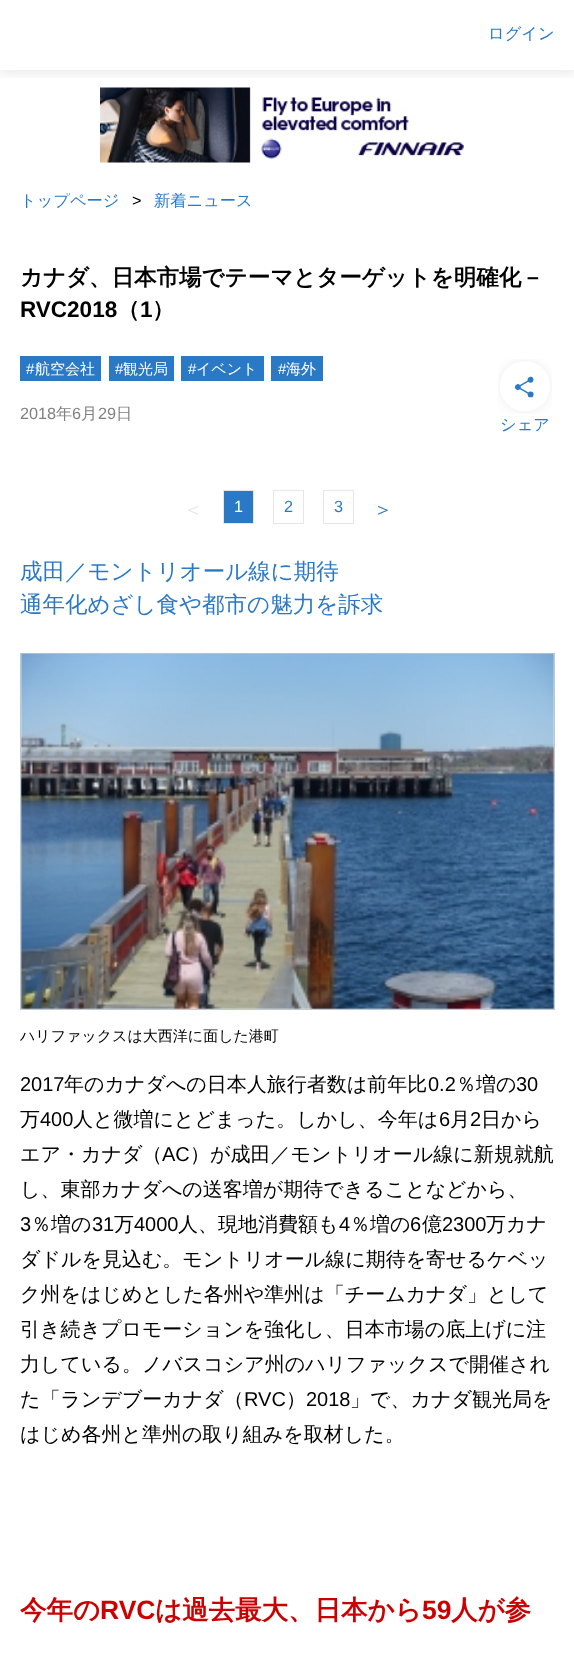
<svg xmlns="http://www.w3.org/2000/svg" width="574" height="1656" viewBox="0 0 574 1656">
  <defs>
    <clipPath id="clip1"><rect x="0" y="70" width="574" height="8"/></clipPath>
    <filter id="blur1" x="-50%" y="-200%" width="200%" height="500%"><feGaussianBlur stdDeviation="6"/></filter>
    <clipPath id="clip2"><rect x="20" y="193" width="535" height="18"/></clipPath>
  </defs>
  <rect width="100%" height="100%" fill="#ffffff"/>
  <image x="100" y="87" width="364" height="76" href="img1.png"/>
  <g clip-path="url(#clip1)">
    <rect x="0" y="4" width="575" height="70" fill="#000000" fill-opacity="0.08" filter="url(#blur1)"/>
  </g>
  <text x="488" y="39" font-family="WenQuanYi Zen Hei" font-size="16.25" font-weight="500" fill="#2979c6">ログイン</text>
  <g clip-path="url(#clip2)">
    <text x="20" y="206" font-family="WenQuanYi Zen Hei" font-size="16.25" font-weight="500" fill="#2979c6">トップページ</text>
  </g>
  <text x="132" y="206" font-family="Liberation Sans" font-size="16.25" fill="#000000">&gt;</text>
  <g clip-path="url(#clip2)">
    <text x="154" y="206" font-family="WenQuanYi Zen Hei" font-size="16.25" font-weight="500" fill="#2979c6">新着ニュース</text>
  </g>
  <text x="20" y="285" font-family="WenQuanYi Zen Hei" font-size="22.5" font-weight="bold" fill="#000000">カナダ、日本市場でテーマとターゲットを明確化－</text>
  <text x="20" y="317" font-family="Liberation Sans" font-size="22.5" font-weight="bold" fill="#000000">RVC2018</text>
  <text x="117" y="317" font-family="WenQuanYi Zen Hei" font-size="22.5" font-weight="bold" fill="#000000">（</text>
  <text x="140" y="317" font-family="Liberation Sans" font-size="22.5" font-weight="bold" fill="#000000">1</text>
  <text x="152" y="317" font-family="WenQuanYi Zen Hei" font-size="22.5" font-weight="bold" fill="#000000">）</text>
  <rect x="20" y="356" width="81" height="25" fill="#2979c6"/>
  <text x="26" y="374" font-family="Liberation Sans" font-size="15" fill="#ffffff">#</text>
  <text x="35" y="374" font-family="WenQuanYi Zen Hei" font-size="15" font-weight="500" fill="#ffffff">航空会社</text>
  <rect x="109" y="356" width="65" height="25" fill="#2979c6"/>
  <text x="115" y="374" font-family="Liberation Sans" font-size="15" fill="#ffffff">#</text>
  <text x="123" y="374" font-family="WenQuanYi Zen Hei" font-size="15" font-weight="500" fill="#ffffff">観光局</text>
  <rect x="181" y="356" width="83" height="25" fill="#2979c6"/>
  <text x="188" y="374" font-family="Liberation Sans" font-size="15" fill="#ffffff">#</text>
  <text x="196" y="374" font-family="WenQuanYi Zen Hei" font-size="15" font-weight="500" fill="#ffffff">イベント</text>
  <rect x="271" y="356" width="52" height="25" fill="#2979c6"/>
  <text x="278" y="374" font-family="Liberation Sans" font-size="15" fill="#ffffff">#</text>
  <text x="286" y="374" font-family="WenQuanYi Zen Hei" font-size="15" font-weight="500" fill="#ffffff">海外</text>
  <text x="20" y="419" font-family="Liberation Sans" font-size="16.25" fill="#808080">2018</text>
  <text x="56" y="419" font-family="WenQuanYi Zen Hei" font-size="16.25" font-weight="500" fill="#808080">年</text>
  <text x="72" y="419" font-family="Liberation Sans" font-size="16.25" fill="#808080">6</text>
  <text x="81" y="419" font-family="WenQuanYi Zen Hei" font-size="16.25" font-weight="500" fill="#808080">月</text>
  <text x="98" y="419" font-family="Liberation Sans" font-size="16.25" fill="#808080">29</text>
  <text x="116" y="419" font-family="WenQuanYi Zen Hei" font-size="16.25" font-weight="500" fill="#808080">日</text>
  <image x="498" y="359" width="54" height="55" href="img2.png"/>
  <text x="500" y="430" font-family="WenQuanYi Zen Hei" font-size="16.25" font-weight="500" fill="#2979c6">シェア</text>
  <text x="183" y="516" font-family="WenQuanYi Zen Hei" font-size="20" font-weight="500" fill="#e6e6e6">＜</text>
  <rect x="223.5" y="490.5" width="30" height="33" fill="#2979c6" stroke="#e6e6e6"/>
  <text x="234" y="512" font-family="Liberation Sans" font-size="16.25" fill="#ffffff">1</text>
  <rect x="273.5" y="490.5" width="30" height="33" fill="none" stroke="#e6e6e6"/>
  <text x="284" y="512" font-family="Liberation Sans" font-size="16.25" fill="#2979c6">2</text>
  <rect x="323.5" y="490.5" width="30" height="33" fill="none" stroke="#e6e6e6"/>
  <text x="334" y="512" font-family="Liberation Sans" font-size="16.25" fill="#2979c6">3</text>
  <text x="373" y="516" font-family="WenQuanYi Zen Hei" font-size="20" font-weight="500" fill="#2979c6">＞</text>
  <text x="20" y="579" font-family="WenQuanYi Zen Hei" font-size="22.5" font-weight="500" fill="#2979c6">成田／モントリオール線に期待</text>
  <text x="20" y="612" font-family="WenQuanYi Zen Hei" font-size="22.5" font-weight="500" fill="#2979c6">通年化めざし食や都市の魅力を訴求</text>
  <rect x="20.5" y="653.5" width="534" height="356" fill="none" stroke="#bdc9d2"/>
  <image x="21" y="653" width="533" height="356" href="img3.png"/>
  <text x="20" y="1041" font-family="WenQuanYi Zen Hei" font-size="15" font-weight="500" fill="#000000">ハリファックスは大西洋に面した港町</text>
  <text x="20" y="1091" font-family="Liberation Sans" font-size="20" fill="#000000">2017</text>
  <text x="64" y="1091" font-family="WenQuanYi Zen Hei" font-size="20" font-weight="500" fill="#000000">年のカナダへの日本人旅行者数は前年比</text>
  <text x="428" y="1091" font-family="Liberation Sans" font-size="20" fill="#000000">0.2</text>
  <text x="456" y="1091" font-family="WenQuanYi Zen Hei" font-size="20" font-weight="500" fill="#000000">％増の</text>
  <text x="516" y="1091" font-family="Liberation Sans" font-size="20" fill="#000000">30</text>
  <text x="20" y="1126" font-family="WenQuanYi Zen Hei" font-size="20" font-weight="500" fill="#000000">万</text>
  <text x="40" y="1126" font-family="Liberation Sans" font-size="20" fill="#000000">400</text>
  <text x="73" y="1126" font-family="WenQuanYi Zen Hei" font-size="20" font-weight="500" fill="#000000">人と微増にとどまった。しかし、今年は</text>
  <text x="439" y="1126" font-family="Liberation Sans" font-size="20" fill="#000000">6</text>
  <text x="450" y="1126" font-family="WenQuanYi Zen Hei" font-size="20" font-weight="500" fill="#000000">月</text>
  <text x="470" y="1126" font-family="Liberation Sans" font-size="20" fill="#000000">2</text>
  <text x="481" y="1126" font-family="WenQuanYi Zen Hei" font-size="20" font-weight="500" fill="#000000">日から</text>
  <text x="20" y="1161" font-family="WenQuanYi Zen Hei" font-size="20" font-weight="500" fill="#000000">エア・カナダ（</text>
  <text x="162" y="1161" font-family="Liberation Sans" font-size="20" fill="#000000">AC</text>
  <text x="190" y="1161" font-family="WenQuanYi Zen Hei" font-size="20" font-weight="500" fill="#000000">）が成田／モントリオール線に新規就航</text>
  <text x="20" y="1196" font-family="WenQuanYi Zen Hei" font-size="20" font-weight="500" fill="#000000">し、東部カナダへの送客増が期待できることなどから、</text>
  <text x="20" y="1231" font-family="Liberation Sans" font-size="20" fill="#000000">3</text>
  <text x="31" y="1231" font-family="WenQuanYi Zen Hei" font-size="20" font-weight="500" fill="#000000">％増の</text>
  <text x="92" y="1231" font-family="Liberation Sans" font-size="20" fill="#000000">31</text>
  <text x="114" y="1231" font-family="WenQuanYi Zen Hei" font-size="20" font-weight="500" fill="#000000">万</text>
  <text x="134" y="1231" font-family="Liberation Sans" font-size="20" fill="#000000">4000</text>
  <text x="178" y="1231" font-family="WenQuanYi Zen Hei" font-size="20" font-weight="500" fill="#000000">人、現地消費額も</text>
  <text x="339" y="1231" font-family="Liberation Sans" font-size="20" fill="#000000">4</text>
  <text x="350" y="1231" font-family="WenQuanYi Zen Hei" font-size="20" font-weight="500" fill="#000000">％増の</text>
  <text x="410" y="1231" font-family="Liberation Sans" font-size="20" fill="#000000">6</text>
  <text x="422" y="1231" font-family="WenQuanYi Zen Hei" font-size="20" font-weight="500" fill="#000000">億</text>
  <text x="442" y="1231" font-family="Liberation Sans" font-size="20" fill="#000000">2300</text>
  <text x="486" y="1231" font-family="WenQuanYi Zen Hei" font-size="20" font-weight="500" fill="#000000">万カナ</text>
  <text x="20" y="1266" font-family="WenQuanYi Zen Hei" font-size="20" font-weight="500" fill="#000000">ダドルを見込む。モントリオール線に期待を寄せるケベッ</text>
  <text x="20" y="1301" font-family="WenQuanYi Zen Hei" font-size="20" font-weight="500" fill="#000000">ク州をはじめとした各州や準州は「チームカナダ」として</text>
  <text x="20" y="1336" font-family="WenQuanYi Zen Hei" font-size="20" font-weight="500" fill="#000000">引き続きプロモーションを強化し、日本市場の底上げに注</text>
  <text x="20" y="1371" font-family="WenQuanYi Zen Hei" font-size="20" font-weight="500" fill="#000000">力している。ノバスコシア州のハリファックスで開催され</text>
  <text x="20" y="1406" font-family="WenQuanYi Zen Hei" font-size="20" font-weight="500" fill="#000000">た「ランデブーカナダ（</text>
  <text x="244" y="1406" font-family="Liberation Sans" font-size="20" fill="#000000">RVC</text>
  <text x="286" y="1406" font-family="WenQuanYi Zen Hei" font-size="20" font-weight="500" fill="#000000">）</text>
  <text x="306" y="1406" font-family="Liberation Sans" font-size="20" fill="#000000">2018</text>
  <text x="350" y="1406" font-family="WenQuanYi Zen Hei" font-size="20" font-weight="500" fill="#000000">」で、カナダ観光局を</text>
  <text x="20" y="1441" font-family="WenQuanYi Zen Hei" font-size="20" font-weight="500" fill="#000000">はじめ各州と準州の取り組みを取材した。</text>
  <text x="20" y="1619" font-family="WenQuanYi Zen Hei" font-size="26.5" font-weight="bold" fill="#cc0000">今年の</text>
  <text x="100" y="1619" font-family="Liberation Sans" font-size="26.5" font-weight="bold" fill="#cc0000">RVC</text>
  <text x="155" y="1619" font-family="WenQuanYi Zen Hei" font-size="26.5" font-weight="bold" fill="#cc0000">は過去最大、日本から</text>
  <text x="422" y="1619" font-family="Liberation Sans" font-size="26.5" font-weight="bold" fill="#cc0000">59</text>
  <text x="451" y="1619" font-family="WenQuanYi Zen Hei" font-size="26.5" font-weight="bold" fill="#cc0000">人が参</text>
</svg>
